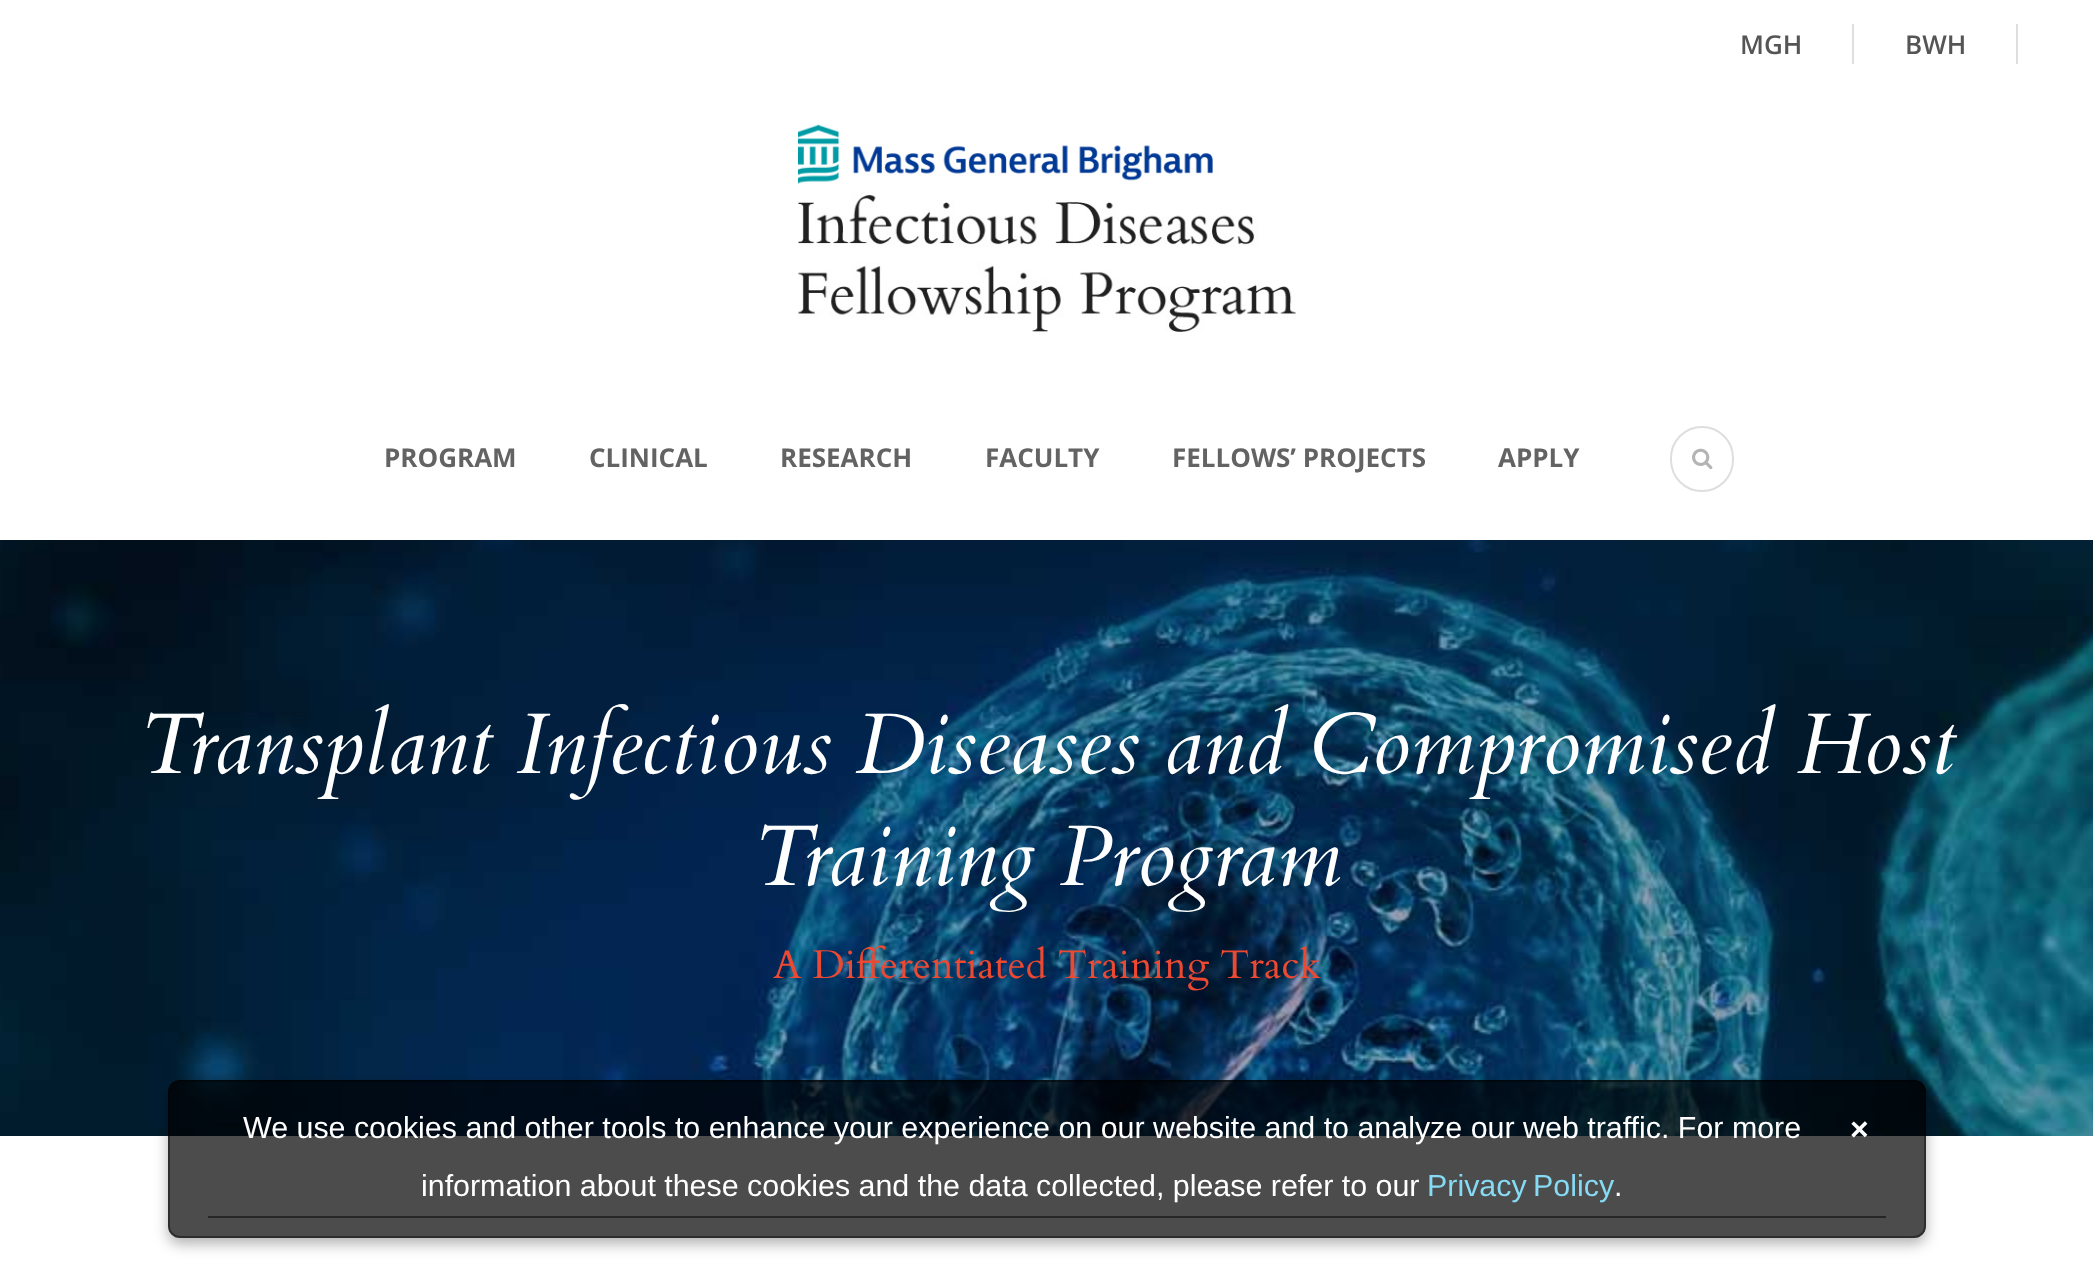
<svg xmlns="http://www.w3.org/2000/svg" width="2093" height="1283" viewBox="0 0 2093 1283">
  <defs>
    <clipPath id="clip1"><path d="M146 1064H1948V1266H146ZM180 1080H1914C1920.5 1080 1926 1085.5 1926 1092V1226C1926 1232.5 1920.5 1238 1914 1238H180C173.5 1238 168 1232.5 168 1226V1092C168 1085.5 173.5 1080 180 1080Z" clip-rule="evenodd"/></clipPath>
    <filter id="blur1" x="-50%" y="-200%" width="200%" height="500%"><feGaussianBlur stdDeviation="7"/></filter>
  </defs>
  <rect width="100%" height="100%" fill="#ffffff"/>
  <rect x="1852" y="24" width="2" height="40" fill="#dedede"/>
  <text x="1740" y="54" font-family="Open Sans" font-size="26" font-weight="600" fill="#555555">MGH</text>
  <rect x="2016" y="24" width="2" height="40" fill="#dedede"/>
  <text x="1905" y="54" font-family="Open Sans" font-size="26" font-weight="600" fill="#555555">BWH</text>
  <image x="798" y="124" width="498" height="208" href="img1.png"/>
  <text x="384" y="467" font-family="Open Sans" font-size="26" font-weight="bold" fill="#646363">PROGRAM</text>
  <text x="589" y="467" font-family="Open Sans" font-size="26" font-weight="bold" fill="#646363">CLINICAL</text>
  <text x="780" y="467" font-family="Open Sans" font-size="26" font-weight="bold" fill="#646363">RESEARCH</text>
  <text x="985" y="467" font-family="Open Sans" font-size="26" font-weight="bold" fill="#646363">FACULTY</text>
  <text x="1172" y="467" font-family="Open Sans" font-size="26" font-weight="bold" fill="#646363">FELLOWS’ PROJECTS</text>
  <text x="1498" y="467" font-family="Open Sans" font-size="26" font-weight="bold" fill="#646363">APPLY</text>
  <rect x="1671" y="427" width="62" height="64" rx="31" fill="none" stroke="#dedede" stroke-width="2"/>
  <image x="1692" y="448" width="21" height="22" href="img2.png"/>
  <image x="0" y="540" width="2093" height="596" href="img3.png"/>
  <text x="139" y="773" font-family="Cardo" font-size="86" font-style="italic" fill="#ffffff">Transplant Infectious Diseases and Compromised Host</text>
  <text x="753" y="885" font-family="Cardo" font-size="86" font-style="italic" fill="#ffffff">Training Program</text>
  <text x="773" y="978" font-family="Cardo" font-size="40" fill="#ec4933">A Differentiated Training Track</text>
  <g clip-path="url(#clip1)">
    <rect x="168" y="1086" width="1758" height="158" rx="12" fill="#000000" fill-opacity="0.3" filter="url(#blur1)"/>
  </g>
  <rect x="168" y="1080" width="1758" height="158" rx="12" fill="#000000" fill-opacity="0.7"/>
  <rect x="169" y="1081" width="1756" height="156" rx="11" fill="none" stroke="#000000" stroke-opacity="0.4" stroke-width="2"/>
  <text x="243" y="1138" font-family="Liberation Sans" font-size="30.4" fill="#ffffff">We use cookies and other tools to enhance your experience on our website and to analyze our web traffic. For more</text>
  <text x="421" y="1196" font-family="Liberation Sans" font-size="30.4" fill="#ffffff">information about these cookies and the data collected, please refer to our</text>
  <text x="1427" y="1196" word-spacing="-2" font-family="Liberation Sans" font-size="30.4" fill="#86daf3">Privacy Policy</text>
  <text x="1614" y="1196" font-family="Liberation Sans" font-size="30.4" fill="#ffffff">.</text>
  <rect x="208" y="1216" width="1678" height="2" fill="#262626"/>
  <text x="1850" y="1140" font-family="Liberation Sans" font-size="32" font-weight="bold" fill="#ffffff">×</text>
</svg>
